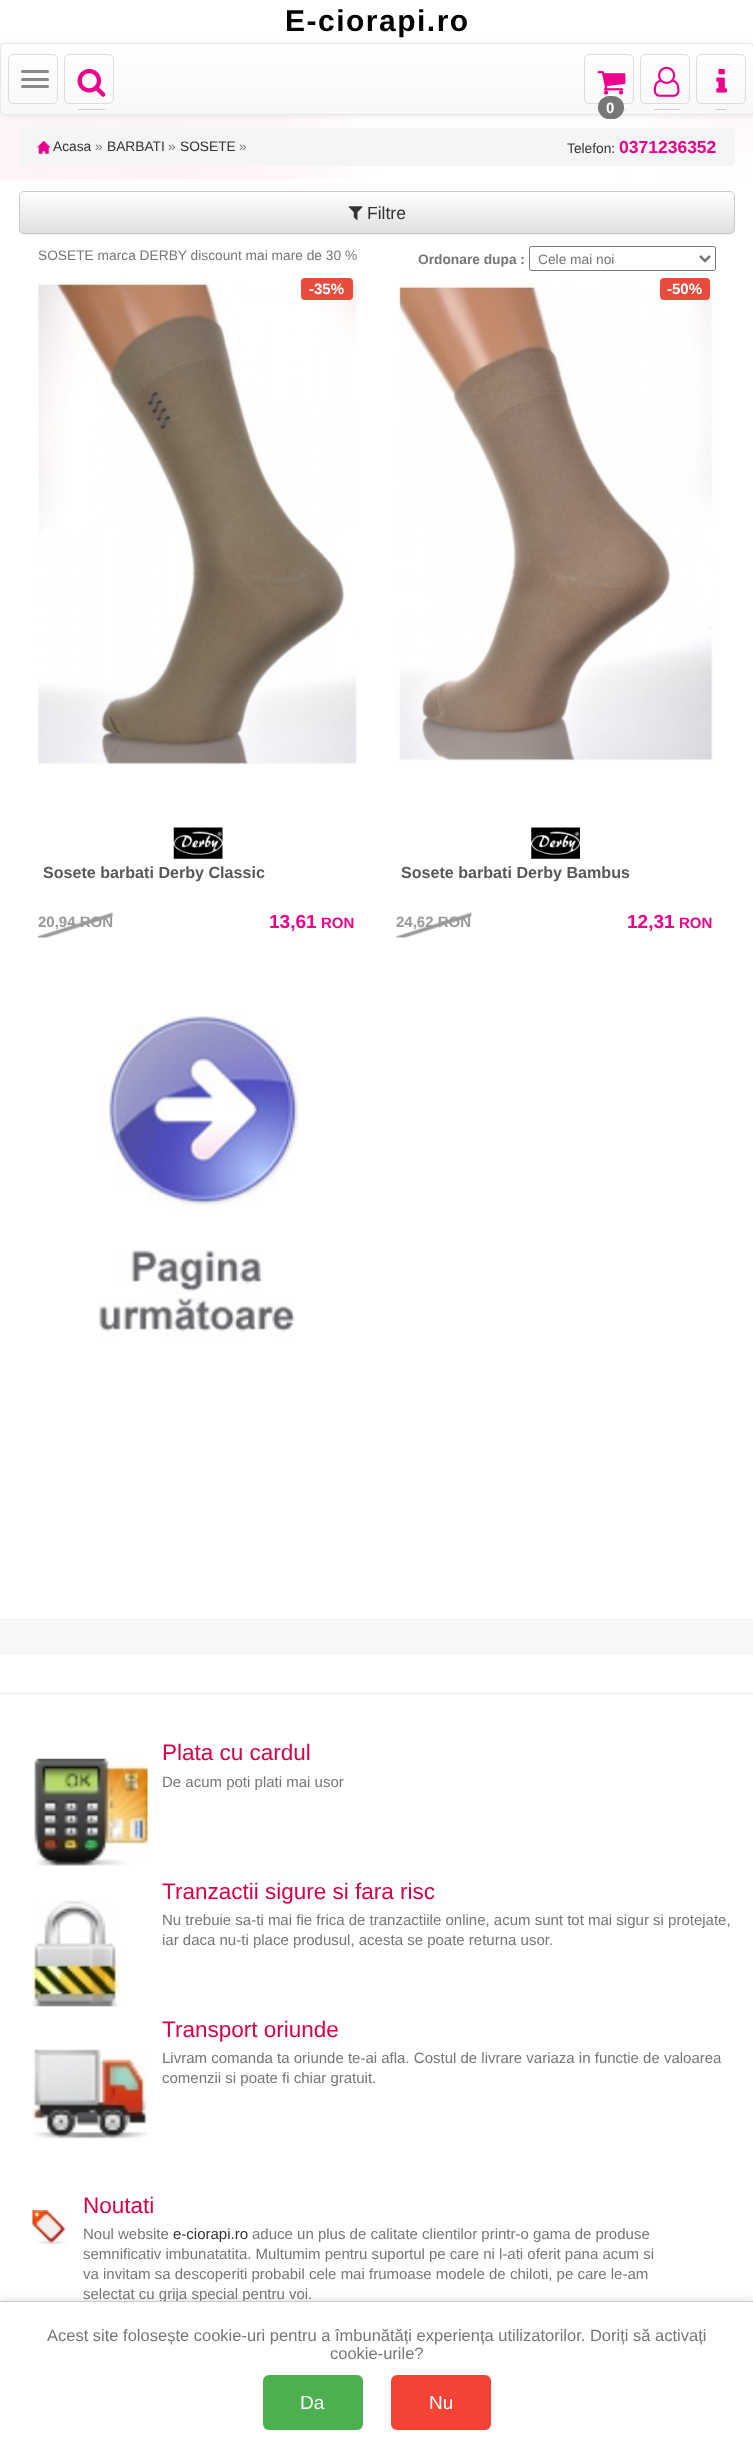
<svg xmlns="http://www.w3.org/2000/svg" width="753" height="2455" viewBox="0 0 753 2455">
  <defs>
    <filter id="blur1" x="-50%" y="-200%" width="200%" height="500%"><feGaussianBlur stdDeviation="3"/></filter>
    <clipPath id="clip1"><rect x="0" y="43" width="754" height="72" rx="5"/></clipPath>
    <linearGradient id="g1" gradientUnits="userSpaceOnUse" x1="377" y1="44" x2="377" y2="114"><stop offset="0" stop-color="#ffffff"/><stop offset="1" stop-color="#f8f8f8"/></linearGradient>
    <filter id="blur2" x="-50%" y="-200%" width="200%" height="500%"><feGaussianBlur stdDeviation="0.5"/></filter>
    <clipPath id="clip2"><rect x="19" y="191" width="716" height="43" rx="5"/></clipPath>
    <linearGradient id="g2" gradientUnits="userSpaceOnUse" x1="377" y1="192" x2="377" y2="233"><stop offset="0" stop-color="#ffffff"/><stop offset="1" stop-color="#e0e0e0"/></linearGradient>
  </defs>
  <rect width="100%" height="100%" fill="#f7f7f7"/>
  <image x="0" y="43" width="753" height="136" href="img1.png"/>
  <rect x="0" y="0" width="753" height="43" fill="#ffffff"/>
  <text x="285" y="31" font-family="Liberation Sans" font-size="30" font-weight="bold" letter-spacing="1.5" fill="#000000">E-ciorapi.ro</text>
  <rect x="0" y="44" width="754" height="72" rx="5" fill="#000000" fill-opacity="0.07" filter="url(#blur1)"/>
  <g clip-path="url(#clip1)">
    <rect x="0" y="44" width="753" height="70" fill="url(#g1)"/>
  </g>
  <rect x="0.5" y="43.5" width="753" height="71" rx="4.5" fill="none" stroke="#e7e7e7"/>
  <rect x="8.5" y="54.5" width="49" height="49" rx="4.5" fill="none" stroke="#dddddd"/>
  <rect x="21" y="70" width="28" height="3" rx="1.5" fill="#888888"/>
  <rect x="21" y="78" width="28" height="3" rx="1.5" fill="#888888"/>
  <rect x="21" y="85" width="28" height="3" rx="1.5" fill="#888888"/>
  <rect x="64.5" y="54.5" width="49" height="49" rx="4.5" fill="none" stroke="#dddddd"/>
  <rect x="78" y="109" width="27" height="1" fill="#cccccc"/>
  <image x="77" y="68" width="29" height="29" href="img2.png"/>
  <rect x="584.5" y="54.5" width="49" height="49" rx="4.5" fill="none" stroke="#dddddd"/>
  <rect x="598" y="109" width="27" height="1" fill="#cccccc"/>
  <image x="597" y="71" width="29" height="24" href="img3.png"/>
  <rect x="598" y="96" width="26" height="23" rx="11.5" fill="#777777"/>
  <text x="606" y="113" font-family="Liberation Sans" font-size="15" font-weight="bold" fill="#ffffff">0</text>
  <rect x="640.5" y="54.5" width="49" height="49" rx="4.5" fill="none" stroke="#dddddd"/>
  <rect x="654" y="109" width="26" height="1" fill="#cccccc"/>
  <image x="653" y="66" width="27" height="31" href="img4.png"/>
  <rect x="696.5" y="54.5" width="49" height="49" rx="4.5" fill="none" stroke="#dddddd"/>
  <rect x="716" y="109" width="10" height="1" fill="#cccccc"/>
  <image x="716" y="68" width="11" height="25" href="img5.png"/>
  <rect x="19" y="128" width="716" height="38" rx="5" fill="#f5f5f5"/>
  <image x="37" y="141" width="13" height="13" href="img6.png"/>
  <text x="53" y="151" font-family="Liberation Sans" font-size="13.75" fill="#333333">Acasa</text>
  <text x="95" y="151" font-family="Liberation Sans" font-size="13.75" fill="#767676">»</text>
  <text x="107" y="151" font-family="Liberation Sans" font-size="13.75" fill="#333333">BARBATI</text>
  <text x="168" y="151" font-family="Liberation Sans" font-size="13.75" fill="#767676">»</text>
  <text x="180" y="151" font-family="Liberation Sans" font-size="13.75" fill="#333333">SOSETE</text>
  <text x="239" y="151" font-family="Liberation Sans" font-size="13.75" fill="#767676">»</text>
  <text x="567" y="153" font-family="Liberation Sans" font-size="13.75" fill="#333333">Telefon:</text>
  <text x="619" y="153" font-family="Liberation Sans" font-size="17.5" font-weight="bold" fill="#ec008c">0371236352</text>
  <rect x="0" y="179" width="753" height="1439" fill="#ffffff"/>
  <rect x="19" y="193" width="716" height="42" rx="5" fill="#000000" fill-opacity="0.07" filter="url(#blur2)"/>
  <rect x="19" y="191" width="716" height="43" rx="5" fill="#ffffff"/>
  <g clip-path="url(#clip2)">
    <rect x="19" y="193" width="716" height="40" fill="url(#g2)"/>
  </g>
  <rect x="19.5" y="191.5" width="715" height="42" rx="4.5" fill="none" stroke="#cccccc"/>
  <image x="348" y="206" width="15" height="14" href="img7.png"/>
  <text x="367" y="219" font-family="Liberation Sans" font-size="17.5" fill="#333333">Filtre</text>
  <text x="38" y="260" font-family="Liberation Sans" font-size="13.75" fill="#767676">SOSETE marca DERBY discount mai mare de 30 %</text>
  <text x="418" y="264" font-family="Liberation Sans" font-size="13.75" font-weight="bold" fill="#767676">Ordonare dupa :</text>
  <rect x="529.5" y="246.5" width="186" height="24" rx="2" fill="none" stroke="#767676"/>
  <path d="M700 256L705 261L710 256" fill="none" stroke="#767676" stroke-width="2.5"/>
  <text x="538" y="264" font-family="Liberation Sans" font-size="13.75" fill="#767676">Cele mai noi</text>
  <image x="38" y="283" width="319" height="482" href="img8.png"/>
  <rect x="301" y="278" width="52" height="22" rx="4" fill="#e74c3c"/>
  <text x="309" y="294" font-family="Liberation Sans" font-size="15" font-weight="bold" fill="#ffffff">-35%</text>
  <image x="173" y="827" width="50" height="32" href="img9.png"/>
  <text x="43" y="878" font-family="Liberation Sans" font-size="16.1" font-weight="bold" fill="#58585a">Sosete barbati Derby Classic</text>
  <image x="37" y="912" width="76" height="26" href="img10.png"/>
  <text x="38" y="927" font-family="Liberation Sans" font-size="15" font-weight="bold" fill="#999999">20,94 RON</text>
  <text x="269" y="928" font-family="Liberation Sans" font-size="19" font-weight="bold" fill="#ec008c">13,61</text>
  <text x="321" y="928" font-family="Liberation Sans" font-size="15" font-weight="bold" fill="#ec008c">RON</text>
  <image x="397" y="284" width="316" height="477" href="img11.png"/>
  <rect x="660" y="278" width="50" height="22" rx="4" fill="#e74c3c"/>
  <text x="667" y="294" font-family="Liberation Sans" font-size="15" font-weight="bold" fill="#ffffff">-50%</text>
  <image x="531" y="827" width="49" height="32" href="img12.png"/>
  <text x="401" y="878" font-family="Liberation Sans" font-size="16.1" font-weight="bold" fill="#58585a">Sosete barbati Derby Bambus</text>
  <image x="396" y="912" width="76" height="26" href="img13.png"/>
  <text x="396" y="927" font-family="Liberation Sans" font-size="15" font-weight="bold" fill="#999999">24,62 RON</text>
  <text x="627" y="928" font-family="Liberation Sans" font-size="19" font-weight="bold" fill="#ec008c">12,31</text>
  <text x="679" y="928" font-family="Liberation Sans" font-size="15" font-weight="bold" fill="#ec008c">RON</text>
  <image x="99" y="1009" width="200" height="332" href="img14.png"/>
  <rect x="0" y="1655" width="753" height="646" fill="#ffffff"/>
  <rect x="0" y="1693" width="753" height="1" fill="#eeeeee"/>
  <image x="34" y="1758" width="114" height="108" href="img15.png"/>
  <text x="162" y="1760" font-family="Liberation Sans" font-size="22.5" fill="#d60046">Plata cu cardul</text>
  <text x="162" y="1787" font-family="Liberation Sans" font-size="15" fill="#767676">De acum poti plati mai usor</text>
  <image x="32" y="1900" width="89" height="107" href="img16.png"/>
  <text x="162" y="1899" font-family="Liberation Sans" font-size="22.5" fill="#d60046">Tranzactii sigure si fara risc</text>
  <text x="162" y="1925" font-family="Liberation Sans" font-size="15" fill="#767676">Nu trebuie sa-ti mai fie frica de tranzactiile online, acum sunt tot mai sigur si protejate,</text>
  <text x="162" y="1945" font-family="Liberation Sans" font-size="15" fill="#767676">iar daca nu-ti place produsul, acesta se poate returna usor.</text>
  <image x="32" y="2049" width="116" height="90" href="img17.png"/>
  <text x="162" y="2037" font-family="Liberation Sans" font-size="22.5" fill="#d60046">Transport oriunde</text>
  <text x="162" y="2063" font-family="Liberation Sans" font-size="15" fill="#767676">Livram comanda ta oriunde te-ai afla. Costul de livrare variaza in functie de valoarea</text>
  <text x="162" y="2083" font-family="Liberation Sans" font-size="15" fill="#767676">comenzii si poate fi chiar gratuit.</text>
  <image x="32" y="2210" width="34" height="34" href="img18.png"/>
  <text x="83" y="2213" font-family="Liberation Sans" font-size="22.5" fill="#d60046">Noutati</text>
  <text x="83" y="2239" font-family="Liberation Sans" font-size="15" fill="#767676">Noul website</text>
  <text x="173" y="2239" font-family="Liberation Sans" font-size="15" fill="#333333">e-ciorapi.ro</text>
  <text x="252" y="2239" font-family="Liberation Sans" font-size="15" fill="#767676">aduce un plus de calitate clientilor printr-o gama de produse</text>
  <text x="83" y="2259" font-family="Liberation Sans" font-size="15" fill="#767676">semnificativ imbunatatita. Multumim pentru suportul pe care ni l-ati oferit pana acum si</text>
  <text x="83" y="2279" font-family="Liberation Sans" font-size="15" fill="#767676">va invitam sa descoperiti probabil cele mai frumoase modele de chiloti, pe care le-am</text>
  <text x="83" y="2299" font-family="Liberation Sans" font-size="15" fill="#767676">selectat cu grija special pentru voi.</text>
  <rect x="0" y="2299" width="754" height="154" fill="#000000" fill-opacity="0.1" filter="url(#blur1)"/>
  <rect x="0" y="2302" width="753" height="153" fill="#ffffff"/>
  <rect x="0" y="2301" width="753" height="1" fill="#cccccc"/>
  <text x="47" y="2341" font-family="Liberation Sans" font-size="16.5" fill="#767676">Acest site folosește cookie-uri pentru a îmbunătăți experiența utilizatorilor. Doriți să activați</text>
  <text x="330" y="2359" font-family="Liberation Sans" font-size="16.5" fill="#767676">cookie-urile?</text>
  <rect x="263" y="2375" width="100" height="55" rx="6" fill="#4caf50"/>
  <text x="300" y="2409" font-family="Liberation Sans" font-size="19" fill="#ffffff">Da</text>
  <rect x="391" y="2375" width="100" height="55" rx="6" fill="#f44336"/>
  <text x="429" y="2409" font-family="Liberation Sans" font-size="19" fill="#ffffff">Nu</text>
</svg>
